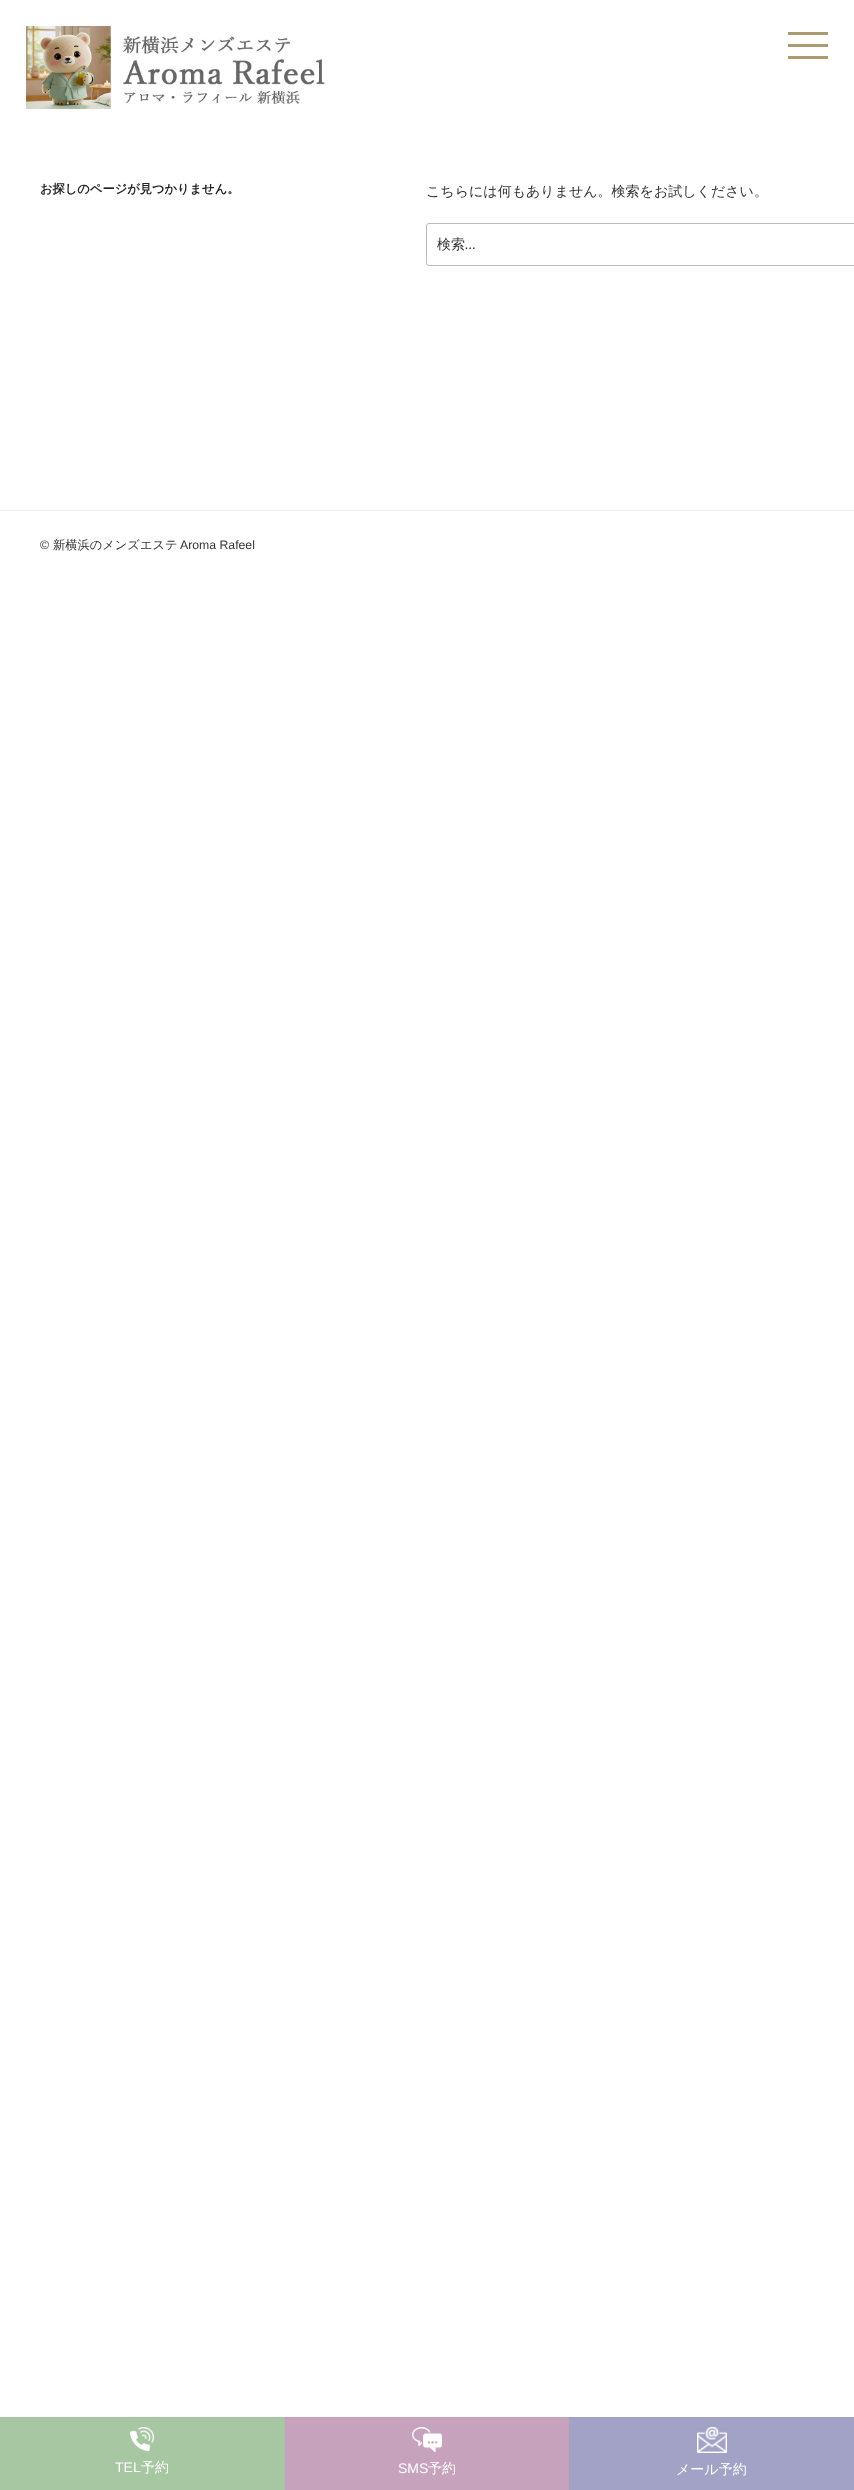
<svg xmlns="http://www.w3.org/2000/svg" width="854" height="2490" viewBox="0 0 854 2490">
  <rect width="100%" height="100%" fill="#ffffff"/>
  <image x="26" y="26" width="299" height="83" href="img1.png"/>
  <rect x="788" y="32" width="40" height="3" fill="#ad9a71"/>
  <rect x="788" y="44" width="40" height="3" fill="#ad9a71"/>
  <rect x="788" y="56" width="40" height="3" fill="#ad9a71"/>
  <text x="40" y="193" font-family="WenQuanYi Zen Hei" font-size="12.25" font-weight="bold" fill="#222222">お探しのページが見つかりません。</text>
  <text x="426" y="196" font-family="WenQuanYi Zen Hei" font-size="14" font-weight="500" fill="#333333">こちらには何もありません。検索をお試しください。</text>
  <rect x="426.5" y="223.5" width="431" height="42" rx="2.5" fill="none" stroke="#bbbbbb"/>
  <text x="437" y="249" font-family="WenQuanYi Zen Hei" font-size="14" font-weight="500" fill="#333333">検索</text>
  <text x="465" y="249" font-family="Libre Franklin" font-size="14" fill="#333333">…</text>
  <rect x="0" y="510" width="854" height="1" fill="#eeeeee"/>
  <text x="40" y="549" font-family="Liberation Sans" font-size="12.25" fill="#333333">©</text>
  <text x="53" y="549" font-family="WenQuanYi Zen Hei" font-size="12.25" font-weight="500" fill="#333333">新横浜のメンズエステ</text>
  <text x="180" y="549" font-family="Liberation Sans" font-size="12.25" fill="#333333">Aroma Rafeel</text>
  <rect x="0" y="2417" width="285" height="73" fill="#a7c6a2"/>
  <image x="130" y="2427" width="24" height="24" href="img2.png"/>
  <text x="115" y="2472" font-family="Liberation Sans" font-size="14" fill="#ffffff">TEL</text>
  <text x="141" y="2472" font-family="WenQuanYi Zen Hei" font-size="14" font-weight="500" fill="#ffffff">予約</text>
  <rect x="285" y="2417" width="284" height="73" fill="#c6a2bc"/>
  <image x="412" y="2427" width="30" height="25" href="img3.png"/>
  <text x="398" y="2473" font-family="Liberation Sans" font-size="14" fill="#ffffff">SMS</text>
  <text x="428" y="2473" font-family="WenQuanYi Zen Hei" font-size="14" font-weight="500" fill="#ffffff">予約</text>
  <rect x="569" y="2417" width="285" height="73" fill="#a2a2c6"/>
  <image x="697" y="2427" width="30" height="26" href="img4.png"/>
  <text x="676" y="2474" font-family="WenQuanYi Zen Hei" font-size="14" font-weight="500" fill="#ffffff">メール予約</text>
</svg>
